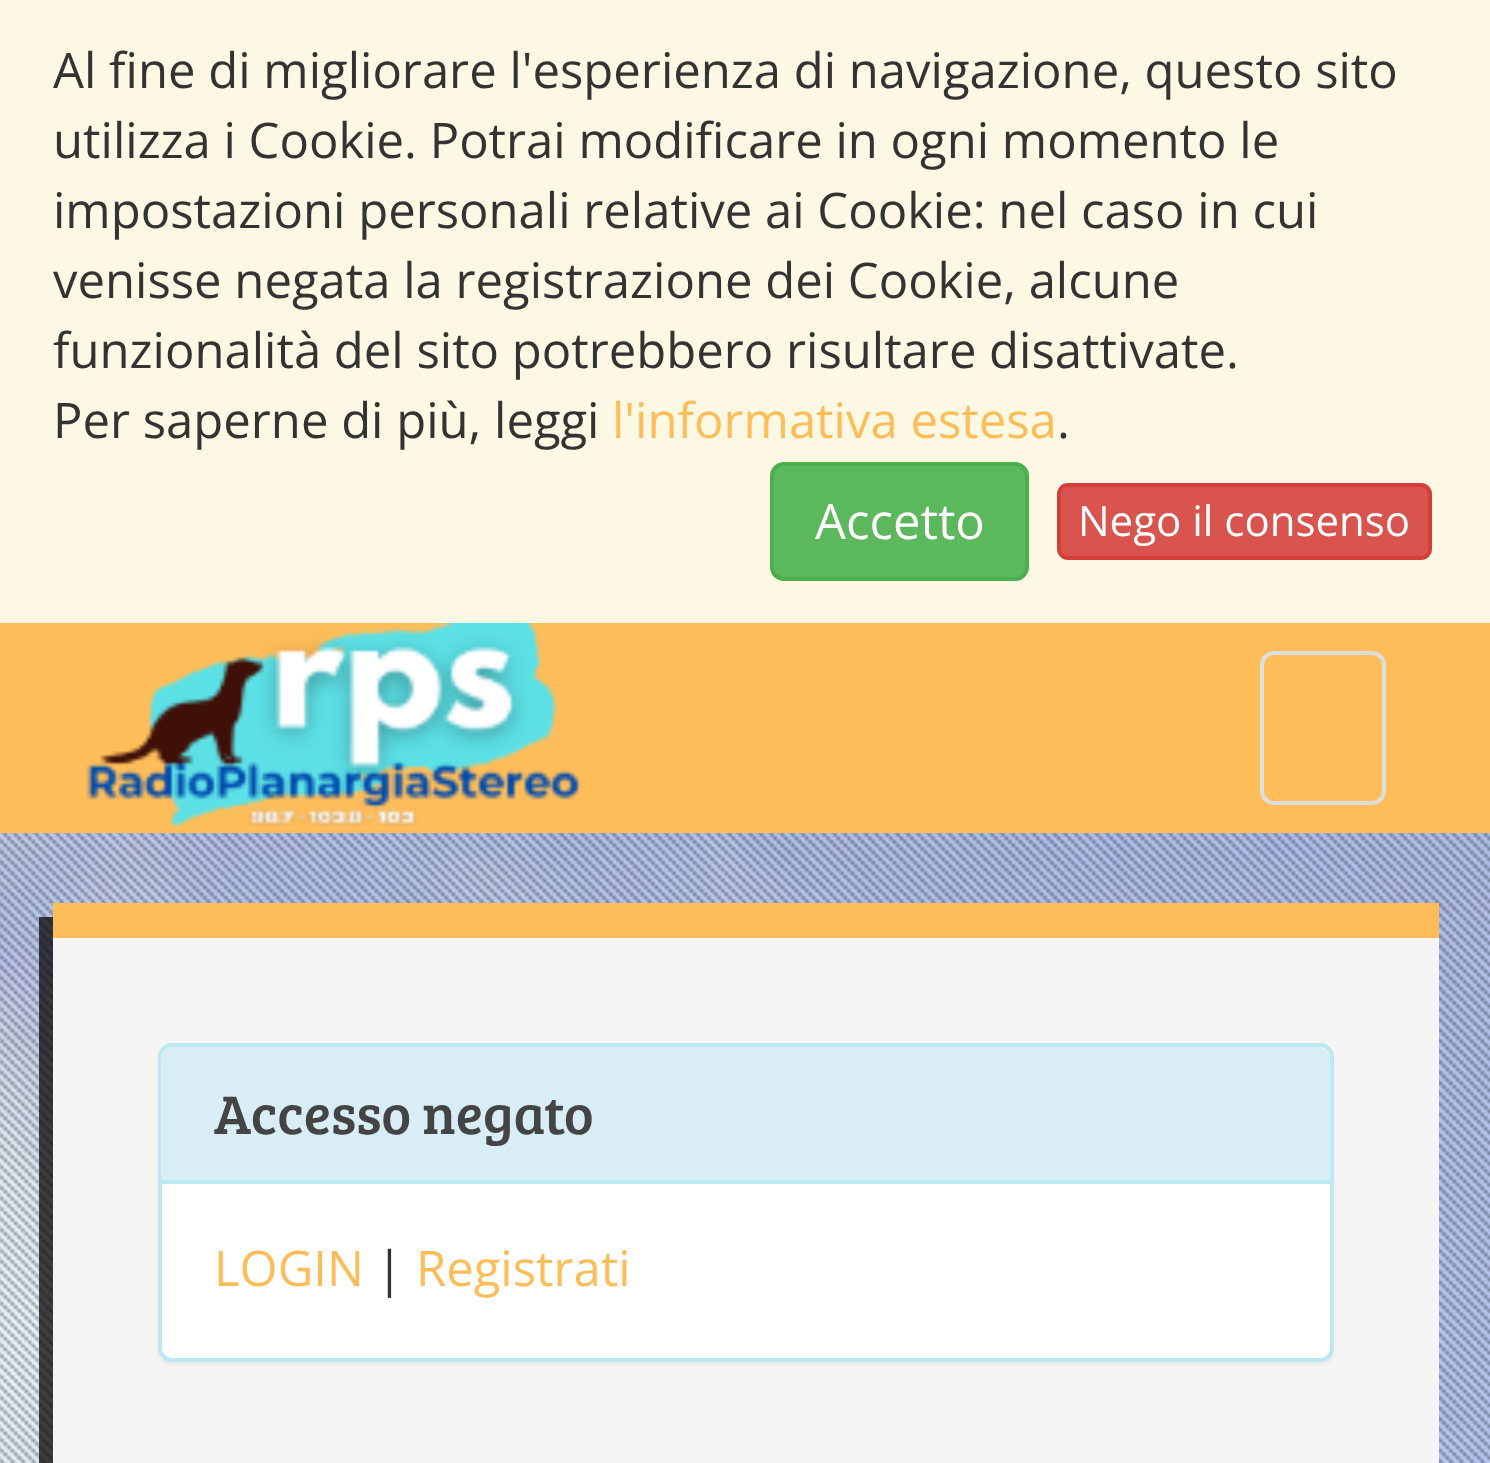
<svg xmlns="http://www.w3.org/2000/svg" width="1490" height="1463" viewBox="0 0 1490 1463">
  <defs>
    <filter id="blur1" x="-50%" y="-200%" width="200%" height="500%"><feGaussianBlur stdDeviation="2"/></filter>
  </defs>
  <rect width="100%" height="100%" fill="#ffffff"/>
  <image x="0" y="833" width="1490" height="630" href="img1.png"/>
  <rect x="0" y="0" width="1490" height="623" fill="#fcf8e3"/>
  <text x="53" y="88" font-family="Open Sans" font-size="49" fill="#333333">Al fine di migliorare l'esperienza di navigazione, questo sito</text>
  <text x="53" y="158" font-family="Open Sans" font-size="49" fill="#333333">utilizza i Cookie. Potrai modificare in ogni momento le</text>
  <text x="53" y="228" font-family="Open Sans" font-size="49" fill="#333333">impostazioni personali relative ai Cookie: nel caso in cui</text>
  <text x="53" y="298" font-family="Open Sans" font-size="49" fill="#333333">venisse negata la registrazione dei Cookie, alcune</text>
  <text x="53" y="368" font-family="Open Sans" font-size="49" fill="#333333">funzionalità del sito potrebbero risultare disattivate.</text>
  <text x="53" y="438" font-family="Open Sans" font-size="49" fill="#333333">Per saperne di più, leggi</text>
  <text x="612" y="438" font-family="Open Sans" font-size="49" fill="#ffbd59">l'informativa estesa</text>
  <text x="1057" y="438" font-family="Open Sans" font-size="49" fill="#333333">.</text>
  <rect x="772" y="464" width="255" height="115" rx="12" fill="#5cb85c" stroke="#4cae4c" stroke-width="4"/>
  <text x="815" y="539" font-family="Open Sans" font-size="49" fill="#ffffff">Accetto</text>
  <rect x="1059" y="485" width="371" height="73" rx="9" fill="#d9534f" stroke="#d43f3a" stroke-width="4"/>
  <text x="1078" y="536" font-family="Open Sans" font-size="42" fill="#ffffff">Nego il consenso</text>
  <rect x="0" y="623" width="1490" height="210" fill="#ffbd59"/>
  <image x="53" y="623" width="559" height="206" href="img2.png"/>
  <rect x="1262" y="653" width="122" height="150" rx="12" fill="none" stroke="#dddddd" stroke-width="4"/>
  <image x="0" y="833" width="1490" height="630" href="img3.png"/>
  <rect x="39" y="917" width="14" height="546" fill="#111111" fill-opacity="0.8"/>
  <rect x="53" y="938" width="1386" height="525" fill="#f5f5f5"/>
  <rect x="53" y="903" width="1386" height="35" fill="#ffbd59"/>
  <rect x="158" y="1047" width="1176" height="318" rx="14" fill="#000000" fill-opacity="0.05" filter="url(#blur1)"/>
  <rect x="160" y="1045" width="1172" height="315" rx="12" fill="#ffffff" stroke="#bce8f1" stroke-width="4"/>
  <path d="M172 1047H1319C1325 1047 1330 1052 1330 1058V1183H161V1058C161 1052 166 1047 172 1047Z" fill="#d9edf7"/>
  <rect x="161" y="1180" width="1169" height="4" fill="#bce8f1"/>
  <text x="214" y="1134" font-family="Bree Serif" font-size="56" fill="#444444">Accesso negato</text>
  <text x="214" y="1286" font-family="Open Sans" font-size="49" fill="#ffbd59">LOGIN</text>
  <text x="376" y="1286" font-family="Open Sans" font-size="49" fill="#333333">|</text>
  <text x="416" y="1286" font-family="Open Sans" font-size="49" fill="#ffbd59">Registrati</text>
</svg>
